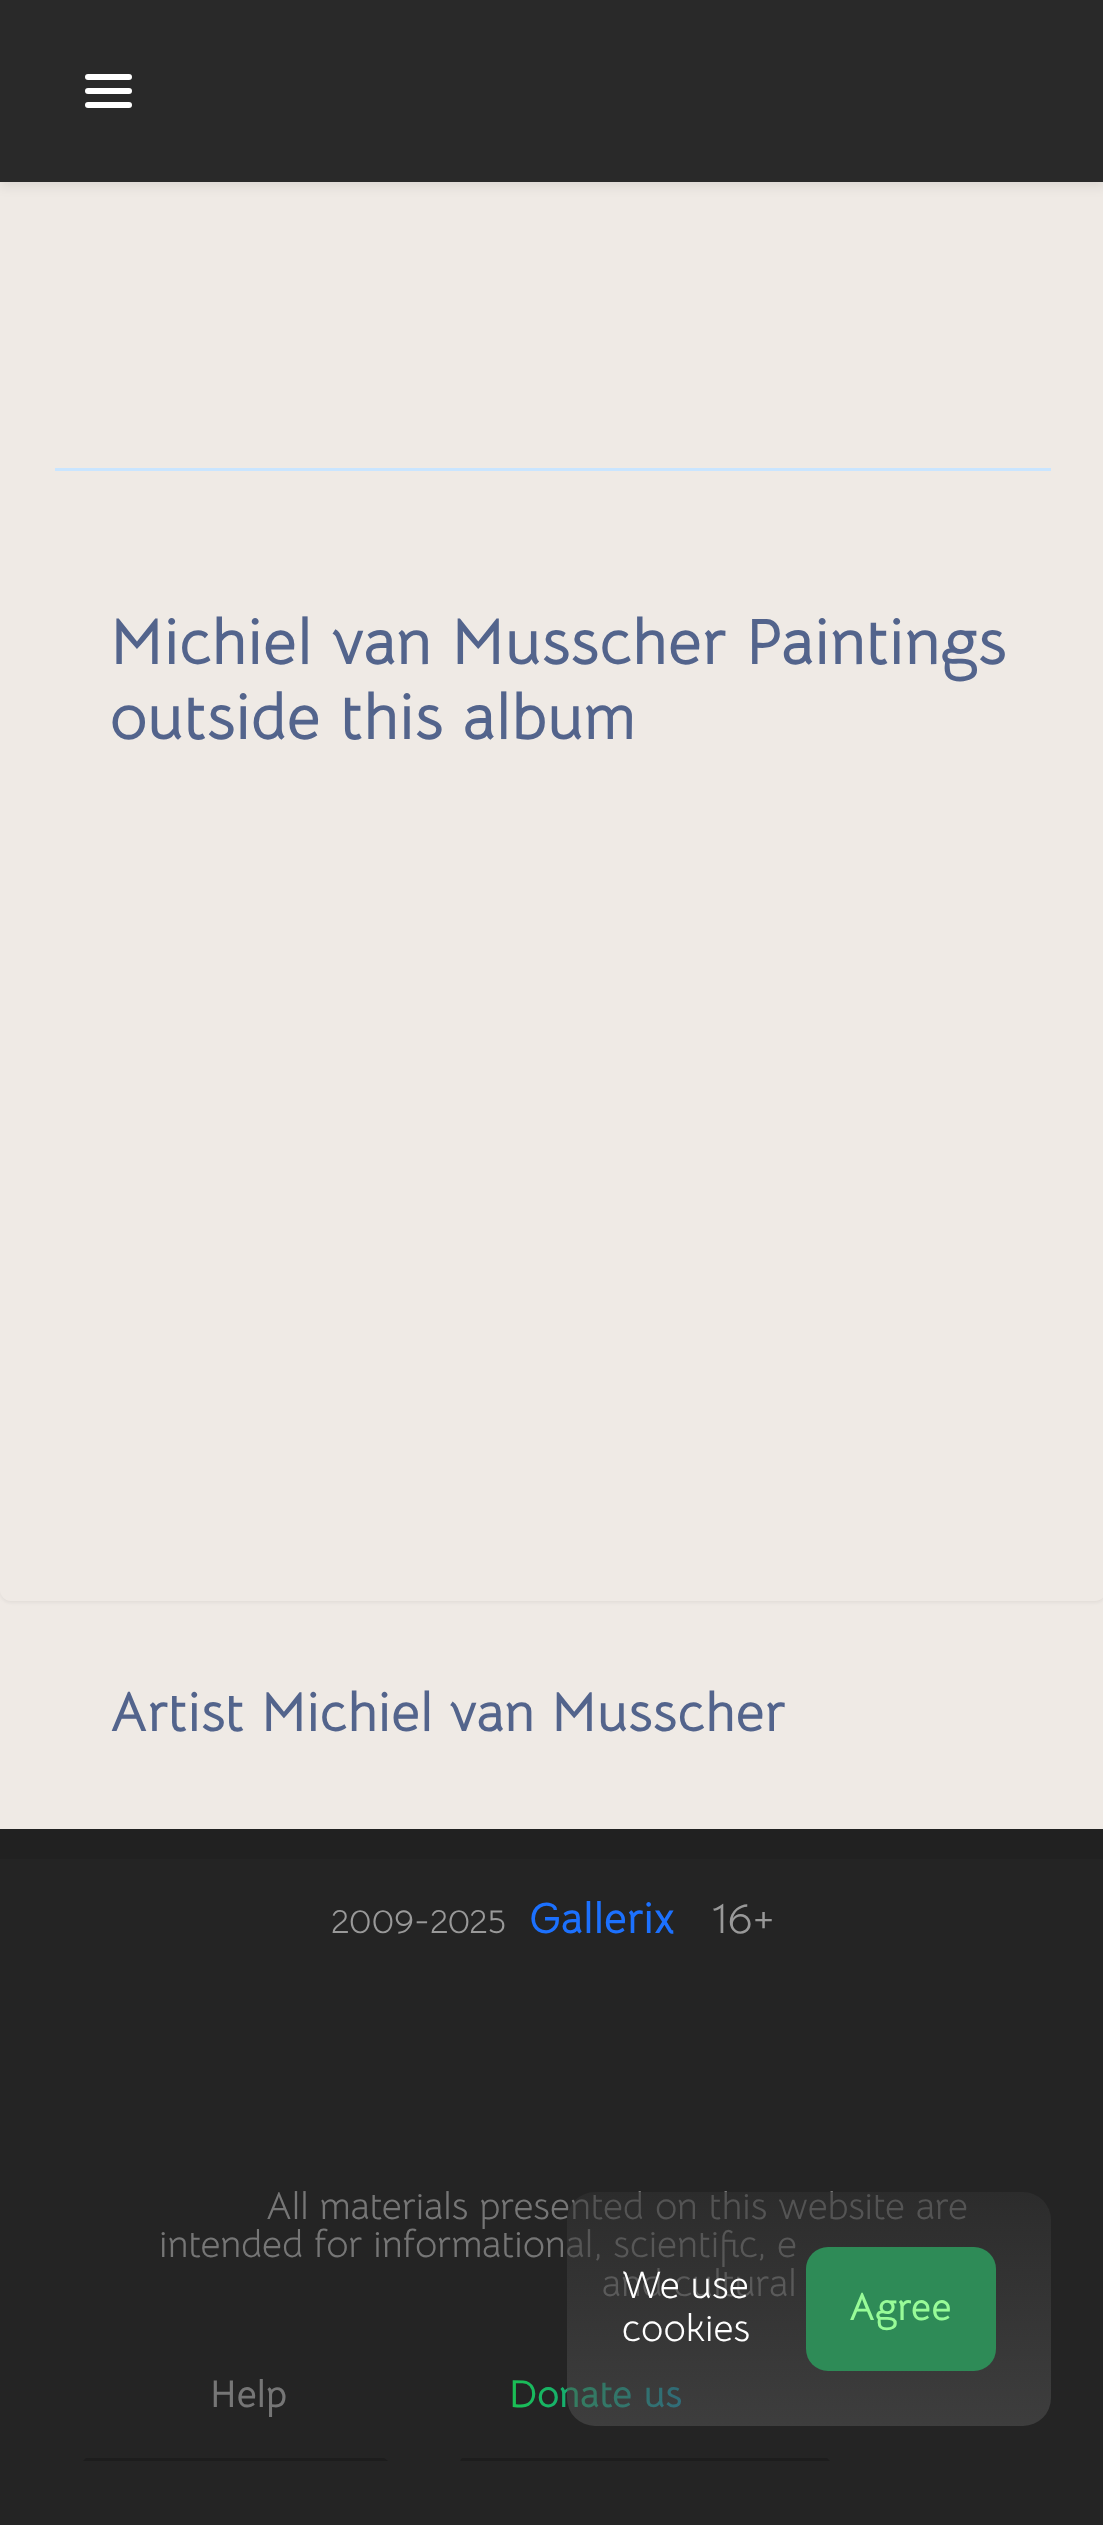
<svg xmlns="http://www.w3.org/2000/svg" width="1103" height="2525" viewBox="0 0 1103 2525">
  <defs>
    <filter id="blur1" x="-50%" y="-200%" width="200%" height="500%"><feGaussianBlur stdDeviation="5.5"/></filter>
    <clipPath id="clip1"><path d="M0 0H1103V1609H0ZM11-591H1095C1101-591 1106-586 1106-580V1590C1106 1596 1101 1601 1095 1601H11C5 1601 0 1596 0 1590V-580C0-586 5-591 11-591Z" clip-rule="evenodd"/></clipPath>
    <filter id="blur2" x="-50%" y="-200%" width="200%" height="500%"><feGaussianBlur stdDeviation="1.5"/></filter>
    <linearGradient id="g1" gradientUnits="userSpaceOnUse" x1="458" y1="2395" x2="830" y2="2395"><stop offset="0.1" stop-color="#1cc54c"/><stop offset="0.88" stop-color="#0367d3"/><stop offset="1" stop-color="#0367d3"/></linearGradient>
    <linearGradient id="g2" gradientUnits="userSpaceOnUse" x1="809" y1="2426" x2="809" y2="2192"><stop offset="0" stop-color="#555555" stop-opacity="0.52"/><stop offset="1" stop-color="#333333" stop-opacity="0.53"/></linearGradient>
  </defs>
  <rect width="100%" height="100%" fill="#212121"/>
  <rect x="0" y="182" width="1103" height="1647" fill="#efeae5"/>
  <rect x="0" y="6" width="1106" height="181" fill="#000000" fill-opacity="0.08" filter="url(#blur1)"/>
  <g clip-path="url(#clip1)">
    <rect x="0" y="-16" width="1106" height="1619" rx="11" fill="#000000" fill-opacity="0.05" filter="url(#blur2)"/>
  </g>
  <rect x="0" y="0" width="1103" height="182" fill="#292929"/>
  <rect x="85" y="74" width="47" height="6" rx="3" fill="#ffffff"/>
  <rect x="85" y="88" width="47" height="6" rx="3" fill="#ffffff"/>
  <rect x="85" y="102" width="47" height="6" rx="3" fill="#ffffff"/>
  <rect x="55" y="468" width="996" height="3" fill="#c9e5ff"/>
  <text x="110" y="664" font-family="Bellota Text" font-size="65.5" font-weight="bold" fill="#53648c">Michiel van Musscher Paintings</text>
  <text x="110" y="739" font-family="Bellota Text" font-size="65.5" font-weight="bold" fill="#53648c">outside this album</text>
  <text x="110" y="1731" font-family="Bellota Text" font-size="55.75" font-weight="bold" fill="#53648c">Artist Michiel van Musscher</text>
  <rect x="0" y="1859" width="1103" height="666" fill="#242424"/>
  <text x="331" y="1933" font-family="Bellota Text" font-size="35" fill="#999999">2009-2025</text>
  <text x="529" y="1933" font-family="Bellota Text" font-size="44" font-weight="bold" fill="#1c71ff">Gallerix</text>
  <text x="712" y="1933" font-family="Bellota Text" font-size="44" fill="#999999">16+</text>
  <text x="266" y="2219" font-family="Bellota Text" font-size="38.5" fill="#767676">All materials presented on this website are</text>
  <text x="159" y="2257" font-family="Bellota Text" font-size="38.5" fill="#767676">intended for informational, scientific, e</text>
  <text x="602" y="2296" font-family="Bellota Text" font-size="38.5" fill="#767676">and cultural</text>
  <path d="M388 2461H83L86 2458H384Z" fill="#1d1d1d"/>
  <text x="210" y="2407" font-family="Bellota Text" font-size="38.5" font-weight="bold" fill="#767676">Help</text>
  <path d="M830 2461H460L462 2458H827Z" fill="#1d1d1d"/>
  <text x="509" y="2407" font-family="Bellota Text" font-size="38.5" font-weight="bold" fill="url(#g1)">Donate us</text>
  <rect x="567" y="2192" width="484" height="234" rx="28" fill="url(#g2)"/>
  <text x="622" y="2298" font-family="Bellota Text" font-size="38.5" fill="#ffffff">We use</text>
  <text x="622" y="2341" font-family="Bellota Text" font-size="38.5" fill="#ffffff">cookies</text>
  <rect x="806" y="2247" width="190" height="124" rx="22" fill="#2e8b57"/>
  <text x="849" y="2320" font-family="Bellota Text" font-size="38.5" font-weight="bold" fill="#98fb98">Agree</text>
</svg>
